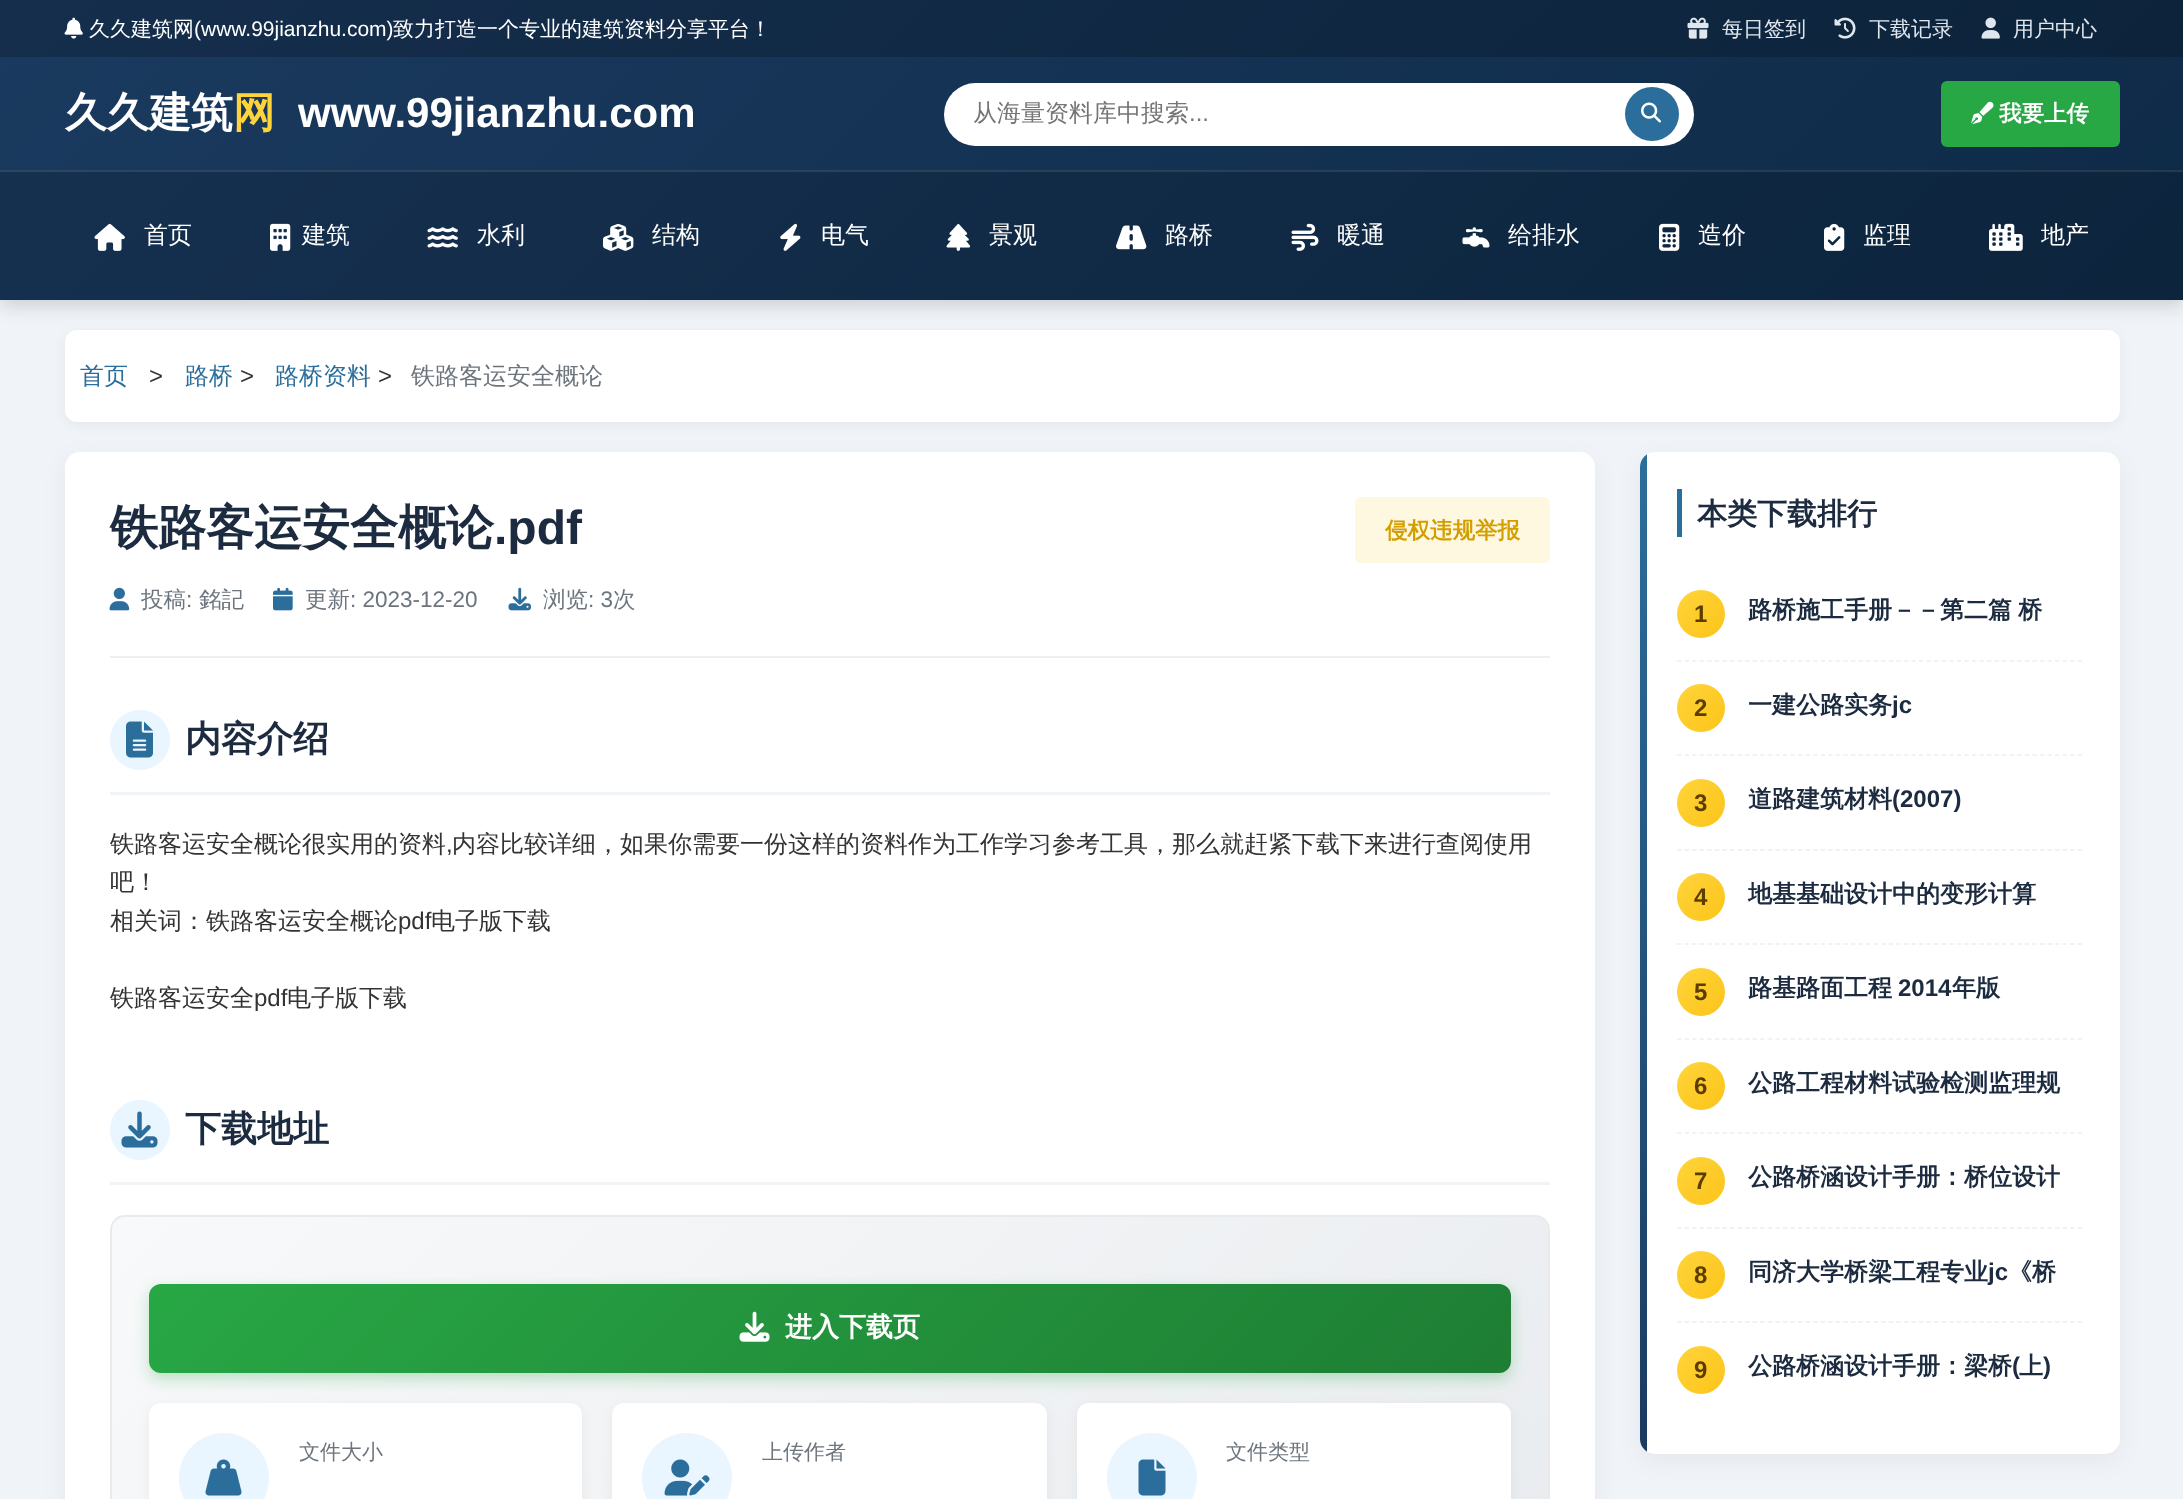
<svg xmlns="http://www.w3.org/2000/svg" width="2183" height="1499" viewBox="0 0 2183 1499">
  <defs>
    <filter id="blur1" x="-50%" y="-200%" width="200%" height="500%"><feGaussianBlur stdDeviation="9"/></filter>
    <linearGradient id="g1" gradientUnits="userSpaceOnUse" x1="471" y1="-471" x2="1713" y2="771"><stop offset="0" stop-color="#1a3a5f"/><stop offset="1" stop-color="#0e2a47"/></linearGradient>
    <linearGradient id="g2" gradientUnits="userSpaceOnUse" x1="471" y1="-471" x2="1713" y2="771"><stop offset="0" stop-color="#163151"/><stop offset="1" stop-color="#0c243c"/></linearGradient>
    <linearGradient id="g3" gradientUnits="userSpaceOnUse" x1="471" y1="-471" x2="1713" y2="771"><stop offset="0" stop-color="#2d4662"/><stop offset="1" stop-color="#243a50"/></linearGradient>
    <linearGradient id="g4" gradientUnits="userSpaceOnUse" x1="471" y1="-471" x2="1713" y2="771"><stop offset="0" stop-color="#152e4c"/><stop offset="1" stop-color="#0b2239"/></linearGradient>
    <filter id="blur2" x="-50%" y="-200%" width="200%" height="500%"><feGaussianBlur stdDeviation="6"/></filter>
    <filter id="blur3" x="-50%" y="-200%" width="200%" height="500%"><feGaussianBlur stdDeviation="11"/></filter>
    <clipPath id="clip1"><rect x="110" y="1215" width="1440" height="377" rx="15"/></clipPath>
    <linearGradient id="g5" gradientUnits="userSpaceOnUse" x1="377" y1="951" x2="1282" y2="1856"><stop offset="0" stop-color="#f8f9fa"/><stop offset="1" stop-color="#e9ecef"/></linearGradient>
    <filter id="blur4" x="-50%" y="-200%" width="200%" height="500%"><feGaussianBlur stdDeviation="7.5"/></filter>
    <linearGradient id="g6" gradientUnits="userSpaceOnUse" x1="467" y1="966" x2="1192" y2="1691"><stop offset="0" stop-color="#28a745"/><stop offset="1" stop-color="#1e7e34"/></linearGradient>
    <clipPath id="clip2"><rect x="1640" y="452" width="480" height="1002" rx="15"/></clipPath>
    <linearGradient id="g7" gradientUnits="userSpaceOnUse" x1="1643" y1="452" x2="1643" y2="1454"><stop offset="0" stop-color="#2c6e9b"/><stop offset="1" stop-color="#1a3a5f"/></linearGradient>
    <linearGradient id="g8" gradientUnits="userSpaceOnUse" x1="1677" y1="590" x2="1725" y2="638"><stop offset="0" stop-color="#ffd43b"/><stop offset="1" stop-color="#fcc419"/></linearGradient>
    <linearGradient id="g9" gradientUnits="userSpaceOnUse" x1="1677" y1="684" x2="1725" y2="732"><stop offset="0" stop-color="#ffd43b"/><stop offset="1" stop-color="#fcc419"/></linearGradient>
    <linearGradient id="g10" gradientUnits="userSpaceOnUse" x1="1677" y1="779" x2="1725" y2="827"><stop offset="0" stop-color="#ffd43b"/><stop offset="1" stop-color="#fcc419"/></linearGradient>
    <linearGradient id="g11" gradientUnits="userSpaceOnUse" x1="1677" y1="873" x2="1725" y2="921"><stop offset="0" stop-color="#ffd43b"/><stop offset="1" stop-color="#fcc419"/></linearGradient>
    <linearGradient id="g12" gradientUnits="userSpaceOnUse" x1="1677" y1="968" x2="1725" y2="1016"><stop offset="0" stop-color="#ffd43b"/><stop offset="1" stop-color="#fcc419"/></linearGradient>
    <linearGradient id="g13" gradientUnits="userSpaceOnUse" x1="1677" y1="1062" x2="1725" y2="1110"><stop offset="0" stop-color="#ffd43b"/><stop offset="1" stop-color="#fcc419"/></linearGradient>
    <linearGradient id="g14" gradientUnits="userSpaceOnUse" x1="1677" y1="1157" x2="1725" y2="1205"><stop offset="0" stop-color="#ffd43b"/><stop offset="1" stop-color="#fcc419"/></linearGradient>
    <linearGradient id="g15" gradientUnits="userSpaceOnUse" x1="1677" y1="1251" x2="1725" y2="1299"><stop offset="0" stop-color="#ffd43b"/><stop offset="1" stop-color="#fcc419"/></linearGradient>
    <linearGradient id="g16" gradientUnits="userSpaceOnUse" x1="1677" y1="1346" x2="1725" y2="1394"><stop offset="0" stop-color="#ffd43b"/><stop offset="1" stop-color="#fcc419"/></linearGradient>
  </defs>
  <rect width="100%" height="100%" fill="#f0f4f8"/>
  <rect x="0" y="6" width="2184" height="300" fill="#000000" fill-opacity="0.15" filter="url(#blur1)"/>
  <rect x="0" y="57" width="2183" height="113" fill="url(#g1)"/>
  <rect x="0" y="172" width="2183" height="128" fill="url(#g2)"/>
  <rect x="0" y="170" width="2183" height="2" fill="url(#g3)"/>
  <rect x="0" y="0" width="2183" height="57" fill="url(#g4)"/>
  <image x="64" y="17" width="19" height="22" href="img1.png"/>
  <text x="89" y="36" font-family="WenQuanYi Zen Hei" font-size="21" font-weight="500" fill="#ffffff">久久建筑网</text>
  <text x="194" y="36" font-family="Liberation Sans" font-size="21" fill="#ffffff">(www.99jianzhu.com)</text>
  <text x="393" y="36" font-family="WenQuanYi Zen Hei" font-size="21" font-weight="500" fill="#ffffff">致力打造一个专业的建筑资料分享平台！</text>
  <image x="1687" y="17" width="22" height="22" href="img2.png"/>
  <text x="1722" y="36" font-family="WenQuanYi Zen Hei" font-size="21" font-weight="500" fill="#e0e6ed">每日签到</text>
  <image x="1834" y="17" width="22" height="22" href="img3.png"/>
  <text x="1869" y="36" font-family="WenQuanYi Zen Hei" font-size="21" font-weight="500" fill="#e0e6ed">下载记录</text>
  <image x="1981" y="17" width="19" height="22" href="img4.png"/>
  <text x="2013" y="36" font-family="WenQuanYi Zen Hei" font-size="21" font-weight="500" fill="#e0e6ed">用户中心</text>
  <text x="65" y="127" font-family="WenQuanYi Zen Hei" font-size="42" font-weight="bold" fill="#ffffff">久久建筑</text>
  <text x="233" y="127" font-family="WenQuanYi Zen Hei" font-size="42" font-weight="bold" fill="#ffd43b">网</text>
  <text x="298" y="127" font-family="Liberation Sans" font-size="42" font-weight="bold" fill="#ffffff">www.99jianzhu.com</text>
  <rect x="944" y="83" width="750" height="63" rx="31.5" fill="#ffffff"/>
  <text x="973" y="121" font-family="WenQuanYi Zen Hei" font-size="24" font-weight="500" fill="#757575">从海量资料库中搜索</text>
  <text x="1189" y="121" font-family="Liberation Sans" font-size="24" fill="#757575">...</text>
  <circle cx="1652" cy="114" r="27" fill="#2c6e9b"/>
  <image x="1641" y="102" width="20" height="21" href="img5.png"/>
  <rect x="1941" y="81" width="179" height="66" rx="6" fill="#28a745"/>
  <image x="1971" y="101" width="23" height="24" href="img6.png"/>
  <text x="1999" y="121" font-family="WenQuanYi Zen Hei" font-size="22.5" font-weight="bold" fill="#ffffff">我要上传</text>
  <image x="94" y="223" width="31" height="28" href="img7.png"/>
  <text x="144" y="243" font-family="WenQuanYi Zen Hei" font-size="24" font-weight="500" fill="#ffffff">首页</text>
  <image x="270" y="223" width="21" height="28" href="img8.png"/>
  <text x="302" y="243" font-family="WenQuanYi Zen Hei" font-size="24" font-weight="500" fill="#ffffff">建筑</text>
  <image x="427" y="227" width="31" height="21" href="img9.png"/>
  <text x="477" y="243" font-family="WenQuanYi Zen Hei" font-size="24" font-weight="500" fill="#ffffff">水利</text>
  <image x="603" y="223" width="31" height="28" href="img10.png"/>
  <text x="652" y="243" font-family="WenQuanYi Zen Hei" font-size="24" font-weight="500" fill="#ffffff">结构</text>
  <image x="780" y="223" width="21" height="28" href="img11.png"/>
  <text x="821" y="243" font-family="WenQuanYi Zen Hei" font-size="24" font-weight="500" fill="#ffffff">电气</text>
  <image x="946" y="223" width="25" height="28" href="img12.png"/>
  <text x="989" y="243" font-family="WenQuanYi Zen Hei" font-size="24" font-weight="500" fill="#ffffff">景观</text>
  <image x="1116" y="225" width="31" height="25" href="img13.png"/>
  <text x="1165" y="243" font-family="WenQuanYi Zen Hei" font-size="24" font-weight="500" fill="#ffffff">路桥</text>
  <image x="1291" y="223" width="28" height="28" href="img14.png"/>
  <text x="1337" y="243" font-family="WenQuanYi Zen Hei" font-size="24" font-weight="500" fill="#ffffff">暖通</text>
  <image x="1462" y="227" width="28" height="21" href="img15.png"/>
  <text x="1508" y="243" font-family="WenQuanYi Zen Hei" font-size="24" font-weight="500" fill="#ffffff">给排水</text>
  <image x="1659" y="223" width="21" height="28" href="img16.png"/>
  <text x="1698" y="243" font-family="WenQuanYi Zen Hei" font-size="24" font-weight="500" fill="#ffffff">造价</text>
  <image x="1824" y="223" width="21" height="28" href="img17.png"/>
  <text x="1863" y="243" font-family="WenQuanYi Zen Hei" font-size="24" font-weight="500" fill="#ffffff">监理</text>
  <image x="1989" y="223" width="34" height="28" href="img18.png"/>
  <text x="2041" y="243" font-family="WenQuanYi Zen Hei" font-size="24" font-weight="500" fill="#ffffff">地产</text>
  <rect x="65" y="333" width="2055" height="92" rx="12" fill="#000000" fill-opacity="0.05" filter="url(#blur2)"/>
  <rect x="65" y="330" width="2055" height="92" rx="12" fill="#ffffff"/>
  <text x="80" y="384" font-family="WenQuanYi Zen Hei" font-size="24" font-weight="500" fill="#2c6e9b">首页</text>
  <text x="149" y="384" font-family="Liberation Sans" font-size="24" fill="#333333">&gt;</text>
  <text x="185" y="384" font-family="WenQuanYi Zen Hei" font-size="24" font-weight="500" fill="#2c6e9b">路桥</text>
  <text x="240" y="384" font-family="Liberation Sans" font-size="24" fill="#333333">&gt;</text>
  <text x="275" y="384" font-family="WenQuanYi Zen Hei" font-size="24" font-weight="500" fill="#2c6e9b">路桥资料</text>
  <text x="378" y="384" font-family="Liberation Sans" font-size="24" fill="#333333">&gt;</text>
  <text x="411" y="384" font-family="WenQuanYi Zen Hei" font-size="24" font-weight="500" fill="#6c757d">铁路客运安全概论</text>
  <rect x="65" y="459" width="1530" height="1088" rx="15" fill="#000000" fill-opacity="0.05" filter="url(#blur3)"/>
  <rect x="65" y="452" width="1530" height="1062" rx="15" fill="#ffffff"/>
  <rect x="110" y="656" width="1440" height="2" fill="#eeeeee"/>
  <text x="110" y="544" font-family="WenQuanYi Zen Hei" font-size="48" font-weight="bold" fill="#1c2b3f">铁路客运安全概论</text>
  <text x="494" y="544" font-family="Liberation Sans" font-size="48" font-weight="bold" fill="#1c2b3f">.pdf</text>
  <image x="109" y="587" width="21" height="24" href="img19.png"/>
  <text x="141" y="607" font-family="WenQuanYi Zen Hei" font-size="22.5" font-weight="500" fill="#6c757d">投稿</text>
  <text x="186" y="607" font-family="Liberation Sans" font-size="22.5" fill="#6c757d">:</text>
  <text x="199" y="607" font-family="WenQuanYi Zen Hei" font-size="22.5" font-weight="500" fill="#6c757d">銘記</text>
  <image x="273" y="587" width="20" height="24" href="img20.png"/>
  <text x="305" y="607" font-family="WenQuanYi Zen Hei" font-size="22.5" font-weight="500" fill="#6c757d">更新</text>
  <text x="350" y="607" font-family="Liberation Sans" font-size="22.5" fill="#6c757d">: 2023-12-20</text>
  <image x="508" y="587" width="23" height="24" href="img21.png"/>
  <text x="543" y="607" font-family="WenQuanYi Zen Hei" font-size="22.5" font-weight="500" fill="#6c757d">浏览</text>
  <text x="588" y="607" font-family="Liberation Sans" font-size="22.5" fill="#6c757d">: 3</text>
  <text x="613" y="607" font-family="WenQuanYi Zen Hei" font-size="22.5" font-weight="500" fill="#6c757d">次</text>
  <rect x="1355" y="497" width="195" height="66" rx="6" fill="#fff8e1"/>
  <text x="1385" y="538" font-family="WenQuanYi Zen Hei" font-size="22.5" font-weight="bold" fill="#d39e00">侵权违规举报</text>
  <rect x="110" y="792" width="1440" height="3" fill="#f0f4f8"/>
  <circle cx="140" cy="740" r="30" fill="#e9f5ff"/>
  <image x="126" y="721" width="27" height="37" href="img22.png"/>
  <text x="185" y="751" font-family="WenQuanYi Zen Hei" font-size="36" font-weight="bold" fill="#1c2b3f">内容介绍</text>
  <text x="110" y="852" font-family="WenQuanYi Zen Hei" font-size="24" font-weight="500" fill="#333333">铁路客运安全概论很实用的资料</text>
  <text x="446" y="852" font-family="Liberation Sans" font-size="24" fill="#333333">,</text>
  <text x="452" y="852" font-family="WenQuanYi Zen Hei" font-size="24" font-weight="500" fill="#333333">内容比较详细，如果你需要一份这样的资料作为工作学习参考工具，那么就赶紧下载下来进行查阅使用</text>
  <text x="110" y="890" font-family="WenQuanYi Zen Hei" font-size="24" font-weight="500" fill="#333333">吧！</text>
  <text x="110" y="929" font-family="WenQuanYi Zen Hei" font-size="24" font-weight="500" fill="#333333">相关词：铁路客运安全概论</text>
  <text x="398" y="929" font-family="Liberation Sans" font-size="24" fill="#333333">pdf</text>
  <text x="431" y="929" font-family="WenQuanYi Zen Hei" font-size="24" font-weight="500" fill="#333333">电子版下载</text>
  <text x="110" y="1006" font-family="WenQuanYi Zen Hei" font-size="24" font-weight="500" fill="#333333">铁路客运安全</text>
  <text x="254" y="1006" font-family="Liberation Sans" font-size="24" fill="#333333">pdf</text>
  <text x="287" y="1006" font-family="WenQuanYi Zen Hei" font-size="24" font-weight="500" fill="#333333">电子版下载</text>
  <rect x="110" y="1182" width="1440" height="3" fill="#f0f4f8"/>
  <circle cx="140" cy="1130" r="30" fill="#e9f5ff"/>
  <image x="121" y="1111" width="37" height="37" href="img23.png"/>
  <text x="185" y="1141" font-family="WenQuanYi Zen Hei" font-size="36" font-weight="bold" fill="#1c2b3f">下载地址</text>
  <g clip-path="url(#clip1)">
    <rect x="111" y="1217" width="1437" height="282" fill="url(#g5)"/>
  </g>
  <rect x="111" y="1216" width="1438" height="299" rx="14" fill="none" stroke="#eaeaea" stroke-width="2"/>
  <rect x="149" y="1290" width="1362" height="89" rx="12" fill="#28a745" fill-opacity="0.3" filter="url(#blur4)"/>
  <rect x="149" y="1284" width="1362" height="89" rx="12" fill="url(#g6)"/>
  <image x="739" y="1311" width="31" height="31" href="img24.png"/>
  <text x="785" y="1336" font-family="WenQuanYi Zen Hei" font-size="27" font-weight="bold" fill="#ffffff">进入下载页</text>
  <rect x="149" y="1406" width="433" height="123" rx="12" fill="#000000" fill-opacity="0.05" filter="url(#blur2)"/>
  <rect x="149" y="1403" width="433" height="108" rx="12" fill="#ffffff"/>
  <circle cx="224" cy="1478" r="45" fill="#e9f5ff"/>
  <image x="205" y="1459" width="37" height="37" href="img25.png"/>
  <text x="299" y="1459" font-family="WenQuanYi Zen Hei" font-size="21" font-weight="500" fill="#6c757d">文件大小</text>
  <rect x="612" y="1406" width="435" height="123" rx="12" fill="#000000" fill-opacity="0.05" filter="url(#blur2)"/>
  <rect x="612" y="1403" width="435" height="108" rx="12" fill="#ffffff"/>
  <circle cx="687" cy="1478" r="45" fill="#e9f5ff"/>
  <image x="664" y="1459" width="46" height="37" href="img26.png"/>
  <text x="762" y="1459" font-family="WenQuanYi Zen Hei" font-size="21" font-weight="500" fill="#6c757d">上传作者</text>
  <rect x="1077" y="1406" width="434" height="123" rx="12" fill="#000000" fill-opacity="0.05" filter="url(#blur2)"/>
  <rect x="1077" y="1403" width="434" height="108" rx="12" fill="#ffffff"/>
  <circle cx="1152" cy="1478" r="45" fill="#e9f5ff"/>
  <image x="1138" y="1459" width="28" height="37" href="img27.png"/>
  <text x="1226" y="1459" font-family="WenQuanYi Zen Hei" font-size="21" font-weight="500" fill="#6c757d">文件类型</text>
  <rect x="1640" y="459" width="480" height="1002" rx="15" fill="#000000" fill-opacity="0.05" filter="url(#blur3)"/>
  <rect x="1640" y="452" width="480" height="1002" rx="15" fill="#ffffff"/>
  <g clip-path="url(#clip2)">
    <rect x="1640" y="452" width="7" height="1002" fill="url(#g7)"/>
  </g>
  <rect x="1677" y="489" width="5" height="48" fill="#2c6e9b"/>
  <text x="1697" y="524" font-family="WenQuanYi Zen Hei" font-size="30" font-weight="bold" fill="#1c2b3f">本类下载排行</text>
  <path d="M1677 661H2082" fill="none" stroke="#eeeeee" stroke-width="1.5" stroke-dasharray="4.5 3.06"/>
  <circle cx="1701" cy="614" r="24" fill="url(#g8)"/>
  <text x="1694" y="622" font-family="Liberation Sans" font-size="24" font-weight="bold" fill="#5c3d00">1</text>
  <text x="1748" y="618" word-spacing="-1" font-family="WenQuanYi Zen Hei" font-size="24" font-weight="bold" fill="#1c2b3f">路桥施工手册－－第二篇 桥</text>
  <path d="M1677 755H2082" fill="none" stroke="#eeeeee" stroke-width="1.5" stroke-dasharray="4.5 3.06"/>
  <circle cx="1701" cy="708" r="24" fill="url(#g9)"/>
  <text x="1694" y="716" font-family="Liberation Sans" font-size="24" font-weight="bold" fill="#5c3d00">2</text>
  <text x="1748" y="713" font-family="WenQuanYi Zen Hei" font-size="24" font-weight="bold" fill="#1c2b3f">一建公路实务</text>
  <text x="1892" y="713" font-family="Liberation Sans" font-size="24" font-weight="bold" fill="#1c2b3f">jc</text>
  <path d="M1677 850H2082" fill="none" stroke="#eeeeee" stroke-width="1.5" stroke-dasharray="4.5 3.06"/>
  <circle cx="1701" cy="803" r="24" fill="url(#g10)"/>
  <text x="1694" y="811" font-family="Liberation Sans" font-size="24" font-weight="bold" fill="#5c3d00">3</text>
  <text x="1748" y="807" font-family="WenQuanYi Zen Hei" font-size="24" font-weight="bold" fill="#1c2b3f">道路建筑材料</text>
  <text x="1892" y="807" font-family="Liberation Sans" font-size="24" font-weight="bold" fill="#1c2b3f">(2007)</text>
  <path d="M1677 944H2082" fill="none" stroke="#eeeeee" stroke-width="1.5" stroke-dasharray="4.5 3.06"/>
  <circle cx="1701" cy="897" r="24" fill="url(#g11)"/>
  <text x="1694" y="905" font-family="Liberation Sans" font-size="24" font-weight="bold" fill="#5c3d00">4</text>
  <text x="1748" y="902" font-family="WenQuanYi Zen Hei" font-size="24" font-weight="bold" fill="#1c2b3f">地基基础设计中的变形计算</text>
  <path d="M1677 1039H2082" fill="none" stroke="#eeeeee" stroke-width="1.5" stroke-dasharray="4.5 3.06"/>
  <circle cx="1701" cy="992" r="24" fill="url(#g12)"/>
  <text x="1694" y="1000" font-family="Liberation Sans" font-size="24" font-weight="bold" fill="#5c3d00">5</text>
  <text x="1748" y="996" font-family="WenQuanYi Zen Hei" font-size="24" font-weight="bold" fill="#1c2b3f">路基路面工程</text>
  <text x="1898" y="996" font-family="Liberation Sans" font-size="24" font-weight="bold" fill="#1c2b3f">2014</text>
  <text x="1952" y="996" font-family="WenQuanYi Zen Hei" font-size="24" font-weight="bold" fill="#1c2b3f">年版</text>
  <path d="M1677 1133H2082" fill="none" stroke="#eeeeee" stroke-width="1.5" stroke-dasharray="4.5 3.06"/>
  <circle cx="1701" cy="1086" r="24" fill="url(#g13)"/>
  <text x="1694" y="1094" font-family="Liberation Sans" font-size="24" font-weight="bold" fill="#5c3d00">6</text>
  <text x="1748" y="1091" font-family="WenQuanYi Zen Hei" font-size="24" font-weight="bold" fill="#1c2b3f">公路工程材料试验检测监理规</text>
  <path d="M1677 1228H2082" fill="none" stroke="#eeeeee" stroke-width="1.5" stroke-dasharray="4.5 3.06"/>
  <circle cx="1701" cy="1181" r="24" fill="url(#g14)"/>
  <text x="1694" y="1189" font-family="Liberation Sans" font-size="24" font-weight="bold" fill="#5c3d00">7</text>
  <text x="1748" y="1185" font-family="WenQuanYi Zen Hei" font-size="24" font-weight="bold" fill="#1c2b3f">公路桥涵设计手册：桥位设计</text>
  <path d="M1677 1322H2082" fill="none" stroke="#eeeeee" stroke-width="1.5" stroke-dasharray="4.5 3.06"/>
  <circle cx="1701" cy="1275" r="24" fill="url(#g15)"/>
  <text x="1694" y="1283" font-family="Liberation Sans" font-size="24" font-weight="bold" fill="#5c3d00">8</text>
  <text x="1748" y="1280" font-family="WenQuanYi Zen Hei" font-size="24" font-weight="bold" fill="#1c2b3f">同济大学桥梁工程专业</text>
  <text x="1988" y="1280" font-family="Liberation Sans" font-size="24" font-weight="bold" fill="#1c2b3f">jc</text>
  <text x="2008" y="1280" font-family="WenQuanYi Zen Hei" font-size="24" font-weight="bold" fill="#1c2b3f">《桥</text>
  <circle cx="1701" cy="1370" r="24" fill="url(#g16)"/>
  <text x="1694" y="1378" font-family="Liberation Sans" font-size="24" font-weight="bold" fill="#5c3d00">9</text>
  <text x="1748" y="1374" font-family="WenQuanYi Zen Hei" font-size="24" font-weight="bold" fill="#1c2b3f">公路桥涵设计手册：梁桥</text>
  <text x="2012" y="1374" font-family="Liberation Sans" font-size="24" font-weight="bold" fill="#1c2b3f">(</text>
  <text x="2019" y="1374" font-family="WenQuanYi Zen Hei" font-size="24" font-weight="bold" fill="#1c2b3f">上</text>
  <text x="2043" y="1374" font-family="Liberation Sans" font-size="24" font-weight="bold" fill="#1c2b3f">)</text>
</svg>
